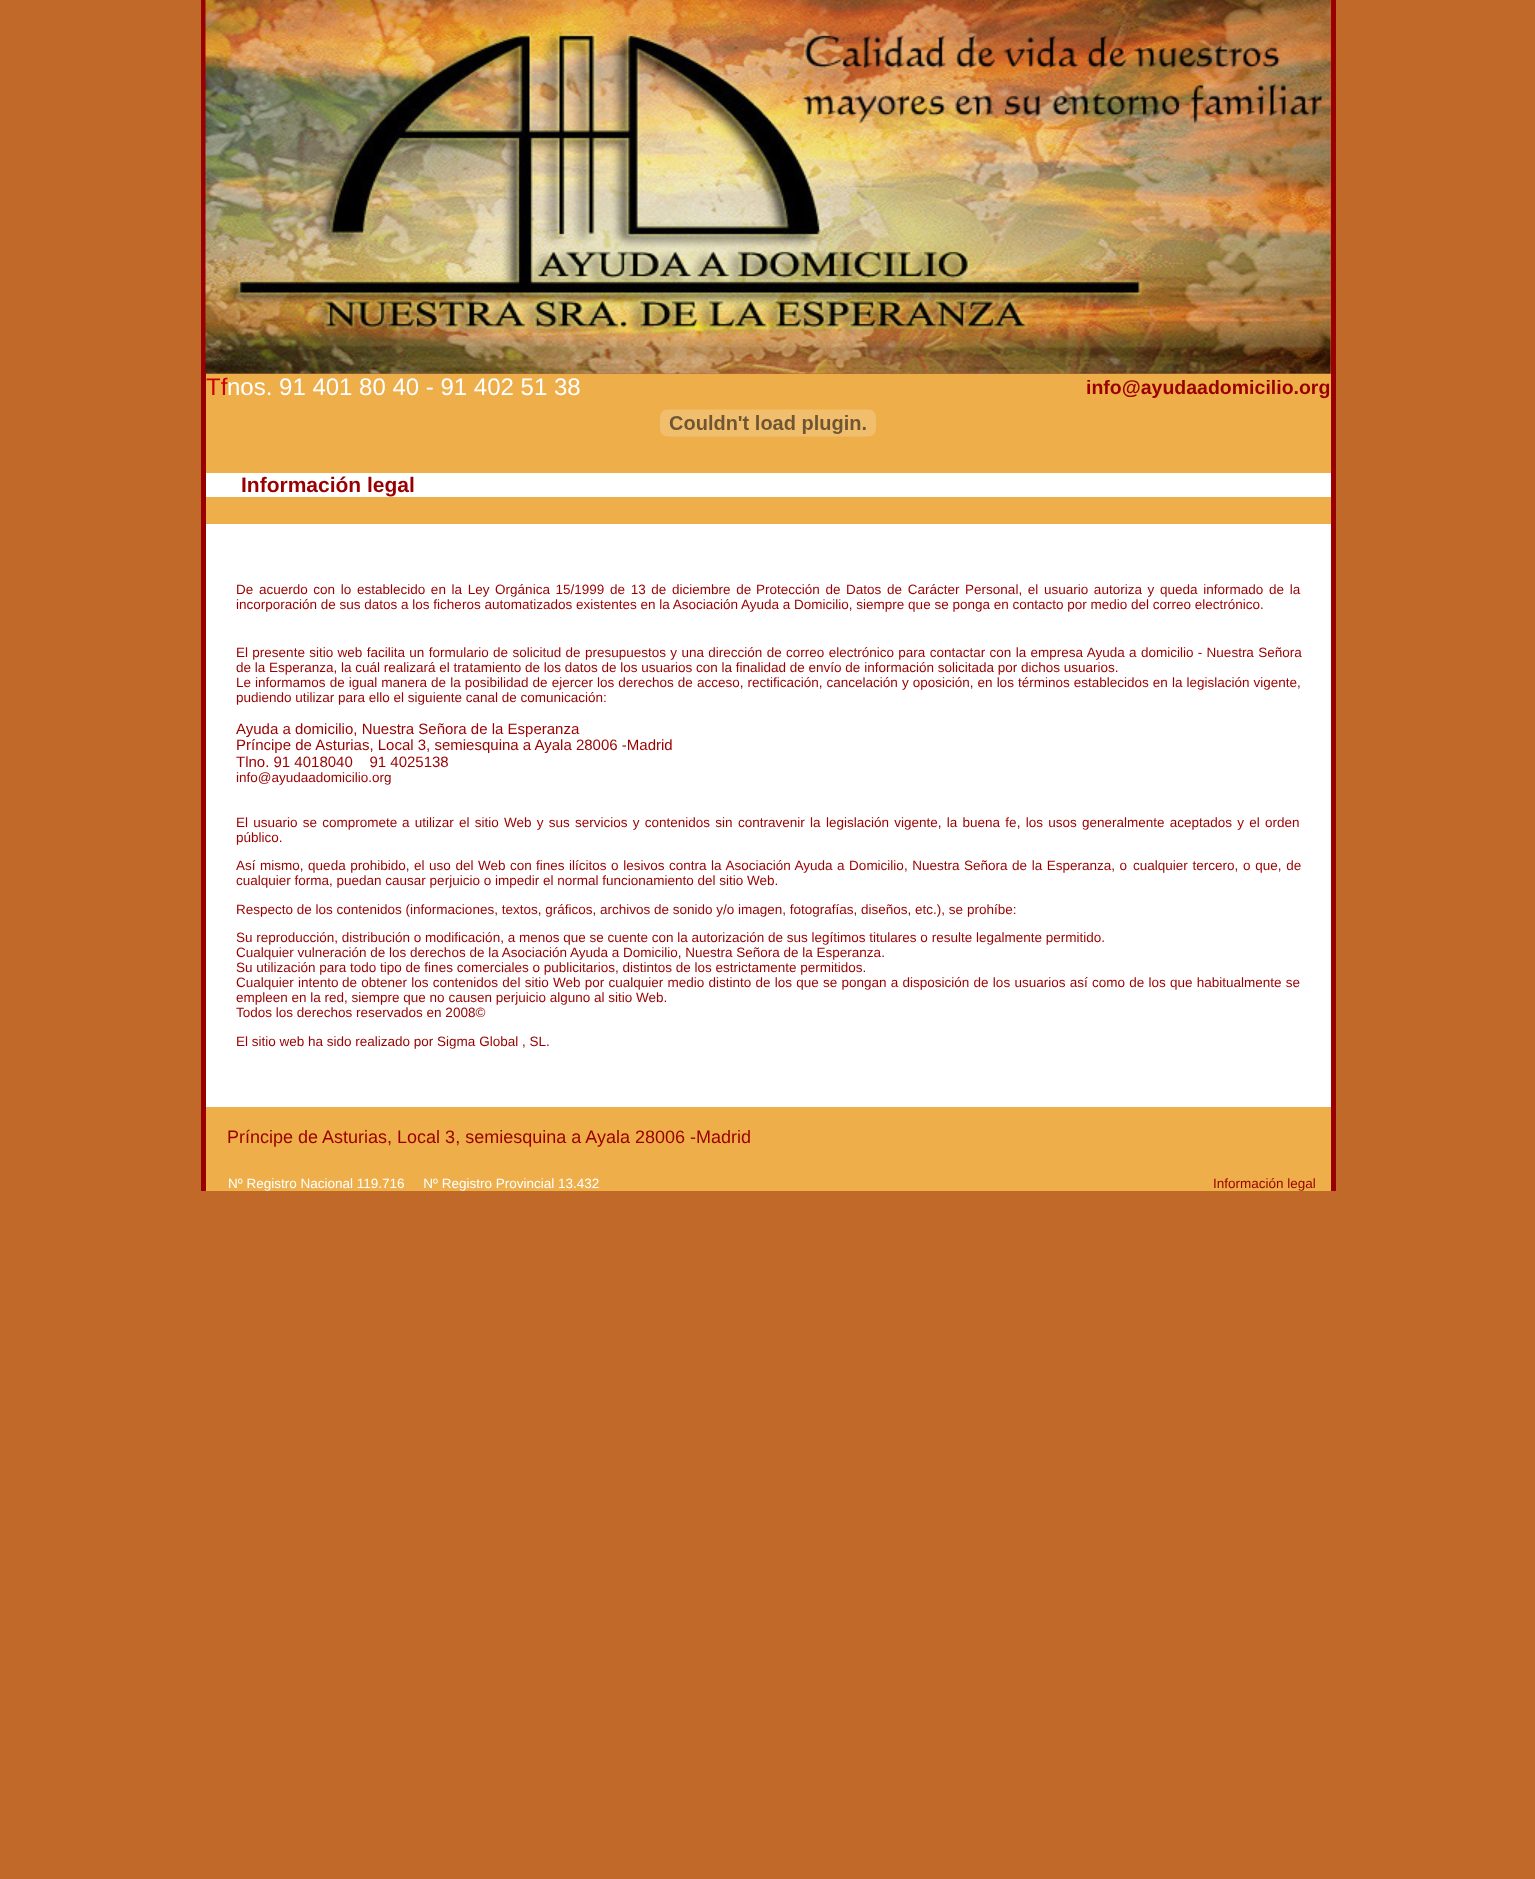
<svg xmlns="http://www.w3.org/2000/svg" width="1535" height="1879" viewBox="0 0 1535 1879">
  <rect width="100%" height="100%" fill="#c16929"/>
  <rect x="1331" y="0" width="5" height="1191" fill="#990000"/>
  <rect x="201" y="0" width="5" height="1191" fill="#990000"/>
  <rect x="206" y="374" width="1125" height="817" fill="#eeae4a"/>
  <image x="205" y="0" width="1126" height="374" href="img1.png"/>
  <text x="206" y="395" font-family="Liberation Sans" font-size="24" fill="#cc0000">Tf</text>
  <text x="227" y="395" font-family="Liberation Sans" font-size="24" fill="#ffffff">nos. 91 401 80 40 - 91 402 51 38</text>
  <text x="1086" y="394" font-family="Liberation Sans" font-size="19.5" font-weight="bold" fill="#990000">info@ayudaadomicilio.org</text>
  <image x="660" y="409" width="216" height="28" href="img2.png"/>
  <rect x="206" y="473" width="1125" height="24" fill="#ffffff"/>
  <text x="241" y="492" font-family="Liberation Sans" font-size="21" font-weight="bold" fill="#990000">Información legal</text>
  <rect x="206" y="524" width="1125" height="583" fill="#ffffff"/>
  <text x="236" y="594" word-spacing="1.9" font-family="Liberation Sans" font-size="13.5" fill="#990000">De acuerdo con lo establecido en la Ley Orgánica 15/1999 de 13 de diciembre de</text>
  <text x="756" y="594" word-spacing="1.9" font-family="Liberation Sans" font-size="13.5" fill="#990000">Protección de Datos de Carácter Personal, el usuario autoriza y queda informado</text>
  <text x="1269" y="594" word-spacing="2" font-family="Liberation Sans" font-size="13.5" fill="#990000">de la</text>
  <text x="236" y="609" font-family="Liberation Sans" font-size="13.5" fill="#990000">incorporación de sus datos a los ficheros automatizados existentes en la Asociación Ayuda a Domicilio, siempre que se ponga en contacto por medio del correo electrónico.</text>
  <text x="236" y="657" word-spacing="0.6" font-family="Liberation Sans" font-size="13.5" fill="#990000">El presente sitio web facilita un formulario de solicitud de presupuestos y una dirección de correo electrónico para contactar con la empresa Ayuda a domicilio - Nuestra Señora</text>
  <text x="236" y="672" font-family="Liberation Sans" font-size="13.5" fill="#990000">de la Esperanza, la cuál realizará el tratamiento de los datos de los usuarios con la finalidad de envío de información solicitada por dichos usuarios.</text>
  <text x="236" y="687" word-spacing="0.3" font-family="Liberation Sans" font-size="13.5" fill="#990000">Le informamos de igual manera de la posibilidad de ejercer los derechos de acceso, rectificación, cancelación y oposición, en los términos establecidos en la legislación vigente,</text>
  <text x="236" y="702" font-family="Liberation Sans" font-size="13.5" fill="#990000">pudiendo utilizar para ello el siguiente canal de comunicación:</text>
  <text x="236" y="734" font-family="Liberation Sans" font-size="15" fill="#990000">Ayuda a domicilio, Nuestra Señora de la Esperanza</text>
  <text x="236" y="750" font-family="Liberation Sans" font-size="15" fill="#990000">Príncipe de Asturias, Local 3, semiesquina a Ayala 28006 -Madrid</text>
  <text x="236" y="767" font-family="Liberation Sans" font-size="15" fill="#990000" xml:space="preserve">Tlno. 91 4018040    91 4025138</text>
  <text x="236" y="782" font-family="Liberation Sans" font-size="13.5" fill="#990000">info@ayudaadomicilio.org</text>
  <text x="236" y="827" word-spacing="1.5" font-family="Liberation Sans" font-size="13.5" fill="#990000">El usuario se compromete</text>
  <text x="402" y="827" word-spacing="1.5" font-family="Liberation Sans" font-size="13.5" fill="#990000">a utilizar el sitio Web y sus servicios y contenidos sin contravenir la</text>
  <text x="826" y="827" word-spacing="1.5" font-family="Liberation Sans" font-size="13.5" fill="#990000">legislación vigente, la buena fe, los usos generalmente aceptados y el orden</text>
  <text x="236" y="842" font-family="Liberation Sans" font-size="13.5" fill="#990000">público.</text>
  <text x="236" y="870" word-spacing="0.8" font-family="Liberation Sans" font-size="13.5" fill="#990000">Así mismo, queda prohibido, el uso del Web con</text>
  <text x="536" y="870" word-spacing="0.8" font-family="Liberation Sans" font-size="13.5" fill="#990000">fines ilícitos o lesivos contra la Asociación Ayuda a Domicilio, Nuestra Señora de la Esperanza, o</text>
  <text x="1133" y="870" word-spacing="1" font-family="Liberation Sans" font-size="13.5" fill="#990000">cualquier tercero, o que, de</text>
  <text x="236" y="885" font-family="Liberation Sans" font-size="13.5" fill="#990000">cualquier forma, puedan causar perjuicio o impedir el normal funcionamiento del sitio Web.</text>
  <text x="236" y="914" font-family="Liberation Sans" font-size="13.5" fill="#990000">Respecto de los contenidos (informaciones, textos, gráficos, archivos de sonido y/o imagen, fotografías, diseños, etc.), se prohíbe:</text>
  <text x="236" y="942" font-family="Liberation Sans" font-size="13.5" fill="#990000">Su reproducción, distribución o modificación, a menos que se cuente con la autorización de sus legítimos titulares o resulte legalmente permitido.</text>
  <text x="236" y="957" font-family="Liberation Sans" font-size="13.5" fill="#990000">Cualquier vulneración de los derechos de la Asociación Ayuda a Domicilio, Nuestra Señora de la Esperanza.</text>
  <text x="236" y="972" font-family="Liberation Sans" font-size="13.5" fill="#990000">Su utilización para todo tipo de fines comerciales o publicitarios, distintos de los estrictamente permitidos.</text>
  <text x="236" y="987" word-spacing="0.5" font-family="Liberation Sans" font-size="13.5" fill="#990000">Cualquier intento</text>
  <text x="342" y="987" word-spacing="0.5" font-family="Liberation Sans" font-size="13.5" fill="#990000">de obtener los contenidos del sitio Web por cualquier medio distinto de los que</text>
  <text x="823" y="987" word-spacing="0.5" font-family="Liberation Sans" font-size="13.5" fill="#990000">se pongan a disposición de los usuarios así como de los que habitualmente se</text>
  <text x="236" y="1002" font-family="Liberation Sans" font-size="13.5" fill="#990000">empleen en la red, siempre que no causen perjuicio alguno al sitio Web.</text>
  <text x="236" y="1017" font-family="Liberation Sans" font-size="13.5" fill="#990000">Todos los derechos reservados en 2008©</text>
  <text x="236" y="1046" font-family="Liberation Sans" font-size="13.5" fill="#990000">El sitio web ha sido realizado por Sigma Global , SL.</text>
  <text x="227" y="1143" font-family="Liberation Sans" font-size="18" fill="#990000">Príncipe de Asturias, Local 3, semiesquina a Ayala 28006 -Madrid</text>
  <text x="228" y="1188" font-family="Liberation Sans" font-size="13.5" fill="#ffffff" xml:space="preserve">Nº Registro Nacional 119.716     Nº Registro Provincial 13.432</text>
  <text x="1213" y="1188" font-family="Liberation Sans" font-size="13.5" fill="#990000">Información legal</text>
</svg>
